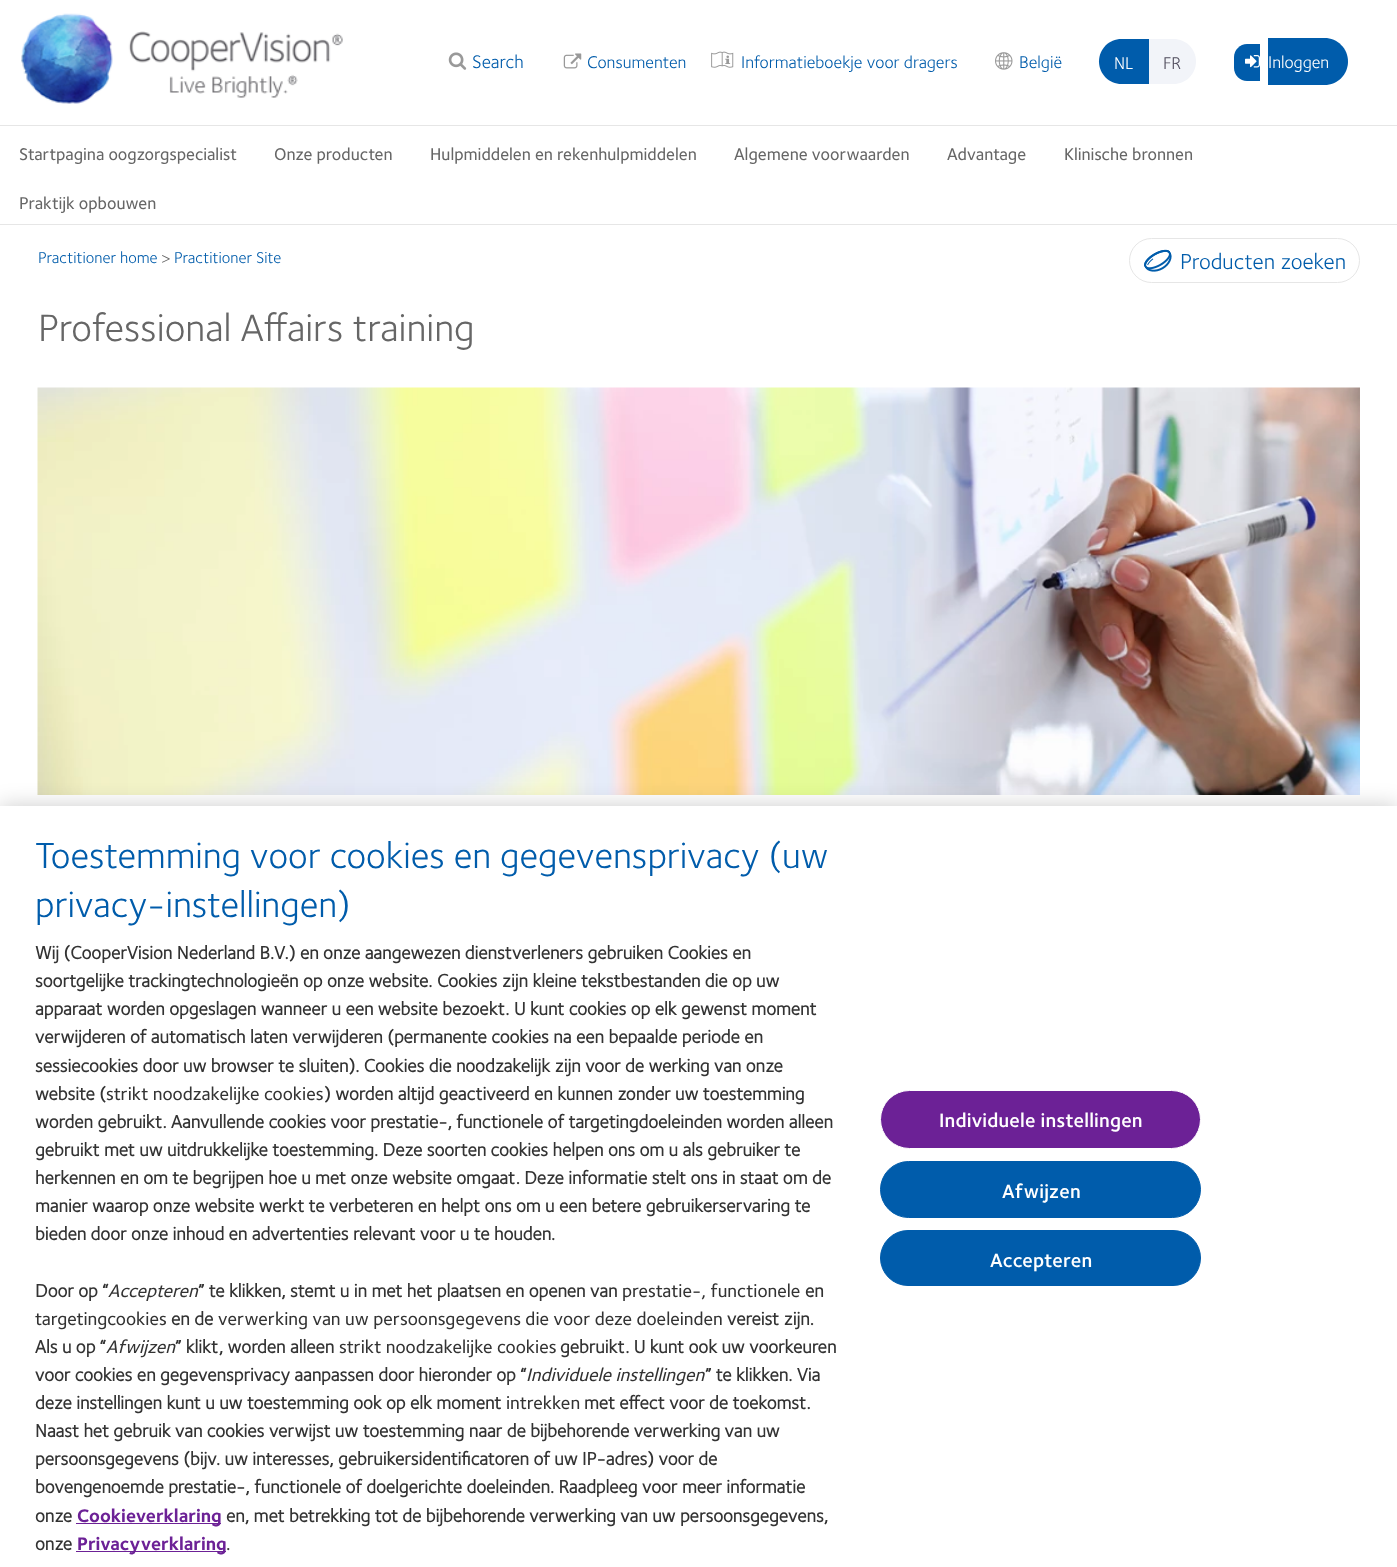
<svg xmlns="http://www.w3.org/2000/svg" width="1397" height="1567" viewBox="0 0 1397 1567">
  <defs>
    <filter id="blur1" x="-50%" y="-200%" width="200%" height="500%"><feGaussianBlur stdDeviation="11"/></filter>
  </defs>
  <rect width="100%" height="100%" fill="#ffffff"/>
  <rect x="0" y="125" width="1397" height="1" fill="#e6e6e6"/>
  <image x="21" y="13" width="322" height="91" href="img1.png"/>
  <image x="448" y="52" width="19" height="18" href="img2.png"/>
  <text x="472" y="68" font-family="'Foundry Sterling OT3'" font-size="18.75" fill="#005cab">Search</text>
  <image x="563" y="53" width="19" height="16" href="img3.png"/>
  <text x="587" y="68" font-family="'Foundry Sterling OT3'" font-size="17.5" fill="#005cab">Consumenten</text>
  <image x="711" y="51" width="23" height="17" href="img4.png"/>
  <text x="741" y="68" font-family="'Foundry Sterling OT3'" font-size="17.5" fill="#005cab">Informatieboekje voor dragers</text>
  <image x="995" y="52" width="18" height="18" href="img5.png"/>
  <text x="1019" y="68" font-family="'Foundry Sterling OT3'" font-size="17.5" fill="#005cab">België</text>
  <path d="M1121.5 39H1149V84H1121.5C1109 84 1099 74 1099 61.5C1099 49 1109 39 1121.5 39Z" fill="#005cab"/>
  <text x="1114" y="69" font-family="'Foundry Sterling OT3'" font-size="17.5" fill="#ffffff">NL</text>
  <path d="M1149 39H1173.5C1186 39 1196 49 1196 61.5C1196 74 1186 84 1173.5 84H1149Z" fill="#f2f4f9"/>
  <text x="1163" y="69" font-family="'Foundry Sterling OT3'" font-size="17.5" fill="#504c5d">FR</text>
  <path d="M1247 44H1260V81H1247C1240 81 1234 75 1234 68V57C1234 50 1240 44 1247 44Z" fill="#005cab"/>
  <path d="M1268 38H1324.5C1337.5 38 1348 48.5 1348 61.5C1348 74.5 1337.5 85 1324.5 85H1268Z" fill="#005cab"/>
  <image x="1245" y="55" width="15" height="13" href="img6.png"/>
  <text x="1268" y="68" font-family="'Foundry Sterling OT3'" font-size="17.5" fill="#ffffff">Inloggen</text>
  <rect x="0" y="224" width="1397" height="1" fill="#e6e6e6"/>
  <text x="19" y="160" font-family="'Foundry Sterling OT3'" font-size="17.5" font-weight="500" fill="#666666">Startpagina oogzorgspecialist</text>
  <text x="274" y="160" font-family="'Foundry Sterling OT3'" font-size="17.5" font-weight="500" fill="#666666">Onze producten</text>
  <text x="430" y="160" font-family="'Foundry Sterling OT3'" font-size="17.5" font-weight="500" fill="#666666">Hulpmiddelen en rekenhulpmiddelen</text>
  <text x="734" y="160" font-family="'Foundry Sterling OT3'" font-size="17.5" font-weight="500" fill="#666666">Algemene voorwaarden</text>
  <text x="947" y="160" font-family="'Foundry Sterling OT3'" font-size="17.5" font-weight="500" fill="#666666">Advantage</text>
  <text x="1064" y="160" font-family="'Foundry Sterling OT3'" font-size="17.5" font-weight="500" fill="#666666">Klinische bronnen</text>
  <text x="19" y="209" font-family="'Foundry Sterling OT3'" font-size="17.5" font-weight="500" fill="#666666">Praktijk opbouwen</text>
  <text x="38" y="263" font-family="'Foundry Sterling OT3'" font-size="16.25" fill="#005cab">Practitioner home</text>
  <text x="161" y="263" font-family="'Foundry Sterling OT3'" font-size="16.25" fill="#666666">&gt;</text>
  <text x="174" y="263" font-family="'Foundry Sterling OT3'" font-size="16.25" fill="#005cab">Practitioner Site</text>
  <rect x="1129.5" y="238.5" width="230" height="44" rx="22" fill="none" stroke="#e6e6e6"/>
  <image x="1144" y="249" width="28" height="23" href="img7.png"/>
  <text x="1180" y="269" font-family="'Foundry Sterling OT3'" font-size="22.5" fill="#005cab">Producten zoeken</text>
  <text x="38" y="341" font-family="'Foundry Sterling OT3'" font-size="39.5" fill="#666666">Professional Affairs training</text>
  <image x="37" y="387" width="1323" height="408" href="img8.png"/>
  <rect x="0" y="806" width="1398" height="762" fill="#000000" fill-opacity="0.2" filter="url(#blur1)"/>
  <rect x="0" y="806" width="1397" height="761" fill="#ffffff"/>
  <text x="35" y="868" font-family="'Foundry Sterling OT3'" font-size="37.5" fill="#005cab">Toestemming voor cookies en gegevensprivacy (uw</text>
  <text x="35" y="917" font-family="'Foundry Sterling OT3'" font-size="37.5" fill="#005cab">privacy-instellingen)</text>
  <text x="35" y="959" font-family="'Foundry Sterling OT3'" font-size="18.75" font-weight="bold" fill="#333333">Wij (CooperVision Nederland B.V.) en onze aangewezen dienstverleners gebruiken Cookies en</text>
  <text x="35" y="987" font-family="'Foundry Sterling OT3'" font-size="18.75" font-weight="bold" fill="#333333">soortgelijke trackingtechnologieën op onze website. Cookies zijn kleine tekstbestanden die op uw</text>
  <text x="35" y="1015" font-family="'Foundry Sterling OT3'" font-size="18.75" font-weight="bold" fill="#333333">apparaat worden opgeslagen wanneer u een website bezoekt. U kunt cookies op elk gewenst moment</text>
  <text x="35" y="1043" font-family="'Foundry Sterling OT3'" font-size="18.75" font-weight="bold" fill="#333333">verwijderen of automatisch laten verwijderen (permanente cookies na een bepaalde periode en</text>
  <text x="35" y="1072" font-family="'Foundry Sterling OT3'" font-size="18.75" font-weight="bold" fill="#333333">sessiecookies door uw browser te sluiten). Cookies die noodzakelijk zijn voor de werking van onze</text>
  <text x="35" y="1100" font-family="'Foundry Sterling OT3'" font-size="18.75" font-weight="bold" fill="#333333">website (</text>
  <text x="106" y="1100" font-family="'Foundry Sterling OT3'" font-size="18.75" font-weight="500" fill="#333333">strikt noodzakelijke cookies</text>
  <text x="324" y="1100" font-family="'Foundry Sterling OT3'" font-size="18.75" font-weight="bold" fill="#333333">) worden altijd geactiveerd en kunnen zonder uw toestemming</text>
  <text x="35" y="1128" font-family="'Foundry Sterling OT3'" font-size="18.75" font-weight="bold" fill="#333333">worden gebruikt. Aanvullende cookies voor prestatie-, functionele of targetingdoeleinden worden alleen</text>
  <text x="35" y="1156" font-family="'Foundry Sterling OT3'" font-size="18.75" font-weight="bold" fill="#333333">gebruikt met uw uitdrukkelijke toestemming. Deze soorten cookies helpen ons om u als gebruiker te</text>
  <text x="35" y="1184" font-family="'Foundry Sterling OT3'" font-size="18.75" font-weight="bold" fill="#333333">herkennen en om te begrijpen hoe u met onze website omgaat. Deze informatie stelt ons in staat om de</text>
  <text x="35" y="1212" font-family="'Foundry Sterling OT3'" font-size="18.75" font-weight="bold" fill="#333333">manier waarop onze website werkt te verbeteren en helpt ons om u een betere gebruikerservaring te</text>
  <text x="35" y="1240" font-family="'Foundry Sterling OT3'" font-size="18.75" font-weight="bold" fill="#333333">bieden door onze inhoud en advertenties relevant voor u te houden.</text>
  <text x="35" y="1297" font-family="'Foundry Sterling OT3'" font-size="18.75" font-weight="bold" fill="#333333">Door op “</text>
  <text x="108" y="1297" font-family="'Foundry Sterling OT3'" font-size="18.75" font-weight="500" font-style="italic" fill="#333333">Accepteren</text>
  <text x="198" y="1297" font-family="'Foundry Sterling OT3'" font-size="18.75" font-weight="bold" fill="#333333">” te klikken, stemt u in met het plaatsen en openen van</text>
  <text x="622" y="1297" font-family="'Foundry Sterling OT3'" font-size="18.75" font-weight="500" fill="#333333">prestatie-, functionele</text>
  <text x="805" y="1297" font-family="'Foundry Sterling OT3'" font-size="18.75" font-weight="bold" fill="#333333">en</text>
  <text x="35" y="1325" font-family="'Foundry Sterling OT3'" font-size="18.75" font-weight="500" fill="#333333">targetingcookies</text>
  <text x="171" y="1325" font-family="'Foundry Sterling OT3'" font-size="18.75" font-weight="bold" fill="#333333">en de</text>
  <text x="218" y="1325" font-family="'Foundry Sterling OT3'" font-size="18.75" font-weight="500" fill="#333333">verwerking van uw persoonsgegevens die voor deze doeleinden</text>
  <text x="727" y="1325" font-family="'Foundry Sterling OT3'" font-size="18.75" font-weight="bold" fill="#333333">vereist zijn.</text>
  <text x="35" y="1353" font-family="'Foundry Sterling OT3'" font-size="18.75" font-weight="bold" fill="#333333">Als u op “</text>
  <text x="106" y="1353" font-family="'Foundry Sterling OT3'" font-size="18.75" font-weight="500" font-style="italic" fill="#333333">Afwijzen</text>
  <text x="175" y="1353" font-family="'Foundry Sterling OT3'" font-size="18.75" font-weight="bold" fill="#333333">” klikt, worden alleen</text>
  <text x="339" y="1353" font-family="'Foundry Sterling OT3'" font-size="18.75" font-weight="500" fill="#333333">strikt noodzakelijke cookies</text>
  <text x="560" y="1353" font-family="'Foundry Sterling OT3'" font-size="18.75" font-weight="bold" fill="#333333">gebruikt. U kunt ook uw voorkeuren</text>
  <text x="35" y="1381" font-family="'Foundry Sterling OT3'" font-size="18.75" font-weight="bold" fill="#333333">voor cookies en gegevensprivacy aanpassen door hieronder op “</text>
  <text x="526" y="1381" font-family="'Foundry Sterling OT3'" font-size="18.75" font-weight="500" font-style="italic" fill="#333333">Individuele instellingen</text>
  <text x="705" y="1381" font-family="'Foundry Sterling OT3'" font-size="18.75" font-weight="bold" fill="#333333">” te klikken. Via</text>
  <text x="35" y="1409" font-family="'Foundry Sterling OT3'" font-size="18.75" font-weight="bold" fill="#333333">deze instellingen kunt u uw toestemming ook op elk moment</text>
  <text x="506" y="1409" font-family="'Foundry Sterling OT3'" font-size="18.75" font-weight="500" fill="#333333">intrekken</text>
  <text x="584" y="1409" font-family="'Foundry Sterling OT3'" font-size="18.75" font-weight="bold" fill="#333333">met effect voor de toekomst.</text>
  <text x="35" y="1437" font-family="'Foundry Sterling OT3'" font-size="18.75" font-weight="bold" fill="#333333">Naast het gebruik van cookies verwijst uw toestemming naar de bijbehorende verwerking van uw</text>
  <text x="35" y="1465" font-family="'Foundry Sterling OT3'" font-size="18.75" font-weight="bold" fill="#333333">persoonsgegevens (bijv. uw interesses, gebruikersidentificatoren of uw IP-adres) voor de</text>
  <text x="35" y="1493" font-family="'Foundry Sterling OT3'" font-size="18.75" font-weight="bold" fill="#333333">bovengenoemde prestatie-, functionele of doelgerichte doeleinden. Raadpleeg voor meer informatie</text>
  <text x="35" y="1522" font-family="'Foundry Sterling OT3'" font-size="18.75" font-weight="bold" fill="#333333">onze</text>
  <rect x="76" y="1523" width="145" height="1" fill="#6c2196"/>
  <text x="77" y="1522" font-family="'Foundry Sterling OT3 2'" font-size="18.75" font-weight="bold" fill="#6c2196">Cookieverklaring</text>
  <text x="226" y="1522" font-family="'Foundry Sterling OT3'" font-size="18.75" font-weight="bold" fill="#333333">en, met betrekking tot de bijbehorende verwerking van uw persoonsgegevens,</text>
  <text x="35" y="1550" font-family="'Foundry Sterling OT3'" font-size="18.75" font-weight="bold" fill="#333333">onze</text>
  <rect x="76" y="1551" width="150" height="1" fill="#6c2196"/>
  <text x="77" y="1550" font-family="'Foundry Sterling OT3 2'" font-size="18.75" font-weight="bold" fill="#6c2196">Privacyverklaring</text>
  <text x="226" y="1550" font-family="'Foundry Sterling OT3'" font-size="18.75" font-weight="500" fill="#333333">.</text>
  <rect x="880.5" y="1090.5" width="320" height="58" rx="29" fill="#6c2196" stroke="#ffffff"/>
  <text x="939" y="1127" font-family="'Foundry Sterling OT3'" font-size="20" font-weight="600" letter-spacing="0.2" fill="#ffffff">Individuele instellingen</text>
  <rect x="880.5" y="1161.5" width="320" height="56" rx="28" fill="#005cab" stroke="#005cab"/>
  <text x="1002" y="1198" font-family="'Foundry Sterling OT3'" font-size="20" font-weight="600" letter-spacing="0.2" fill="#ffffff">Afwijzen</text>
  <rect x="880.5" y="1230.5" width="320" height="55" rx="27.5" fill="#005cab" stroke="#005cab"/>
  <text x="990" y="1267" font-family="'Foundry Sterling OT3'" font-size="20" font-weight="600" letter-spacing="0.2" fill="#ffffff">Accepteren</text>
</svg>
